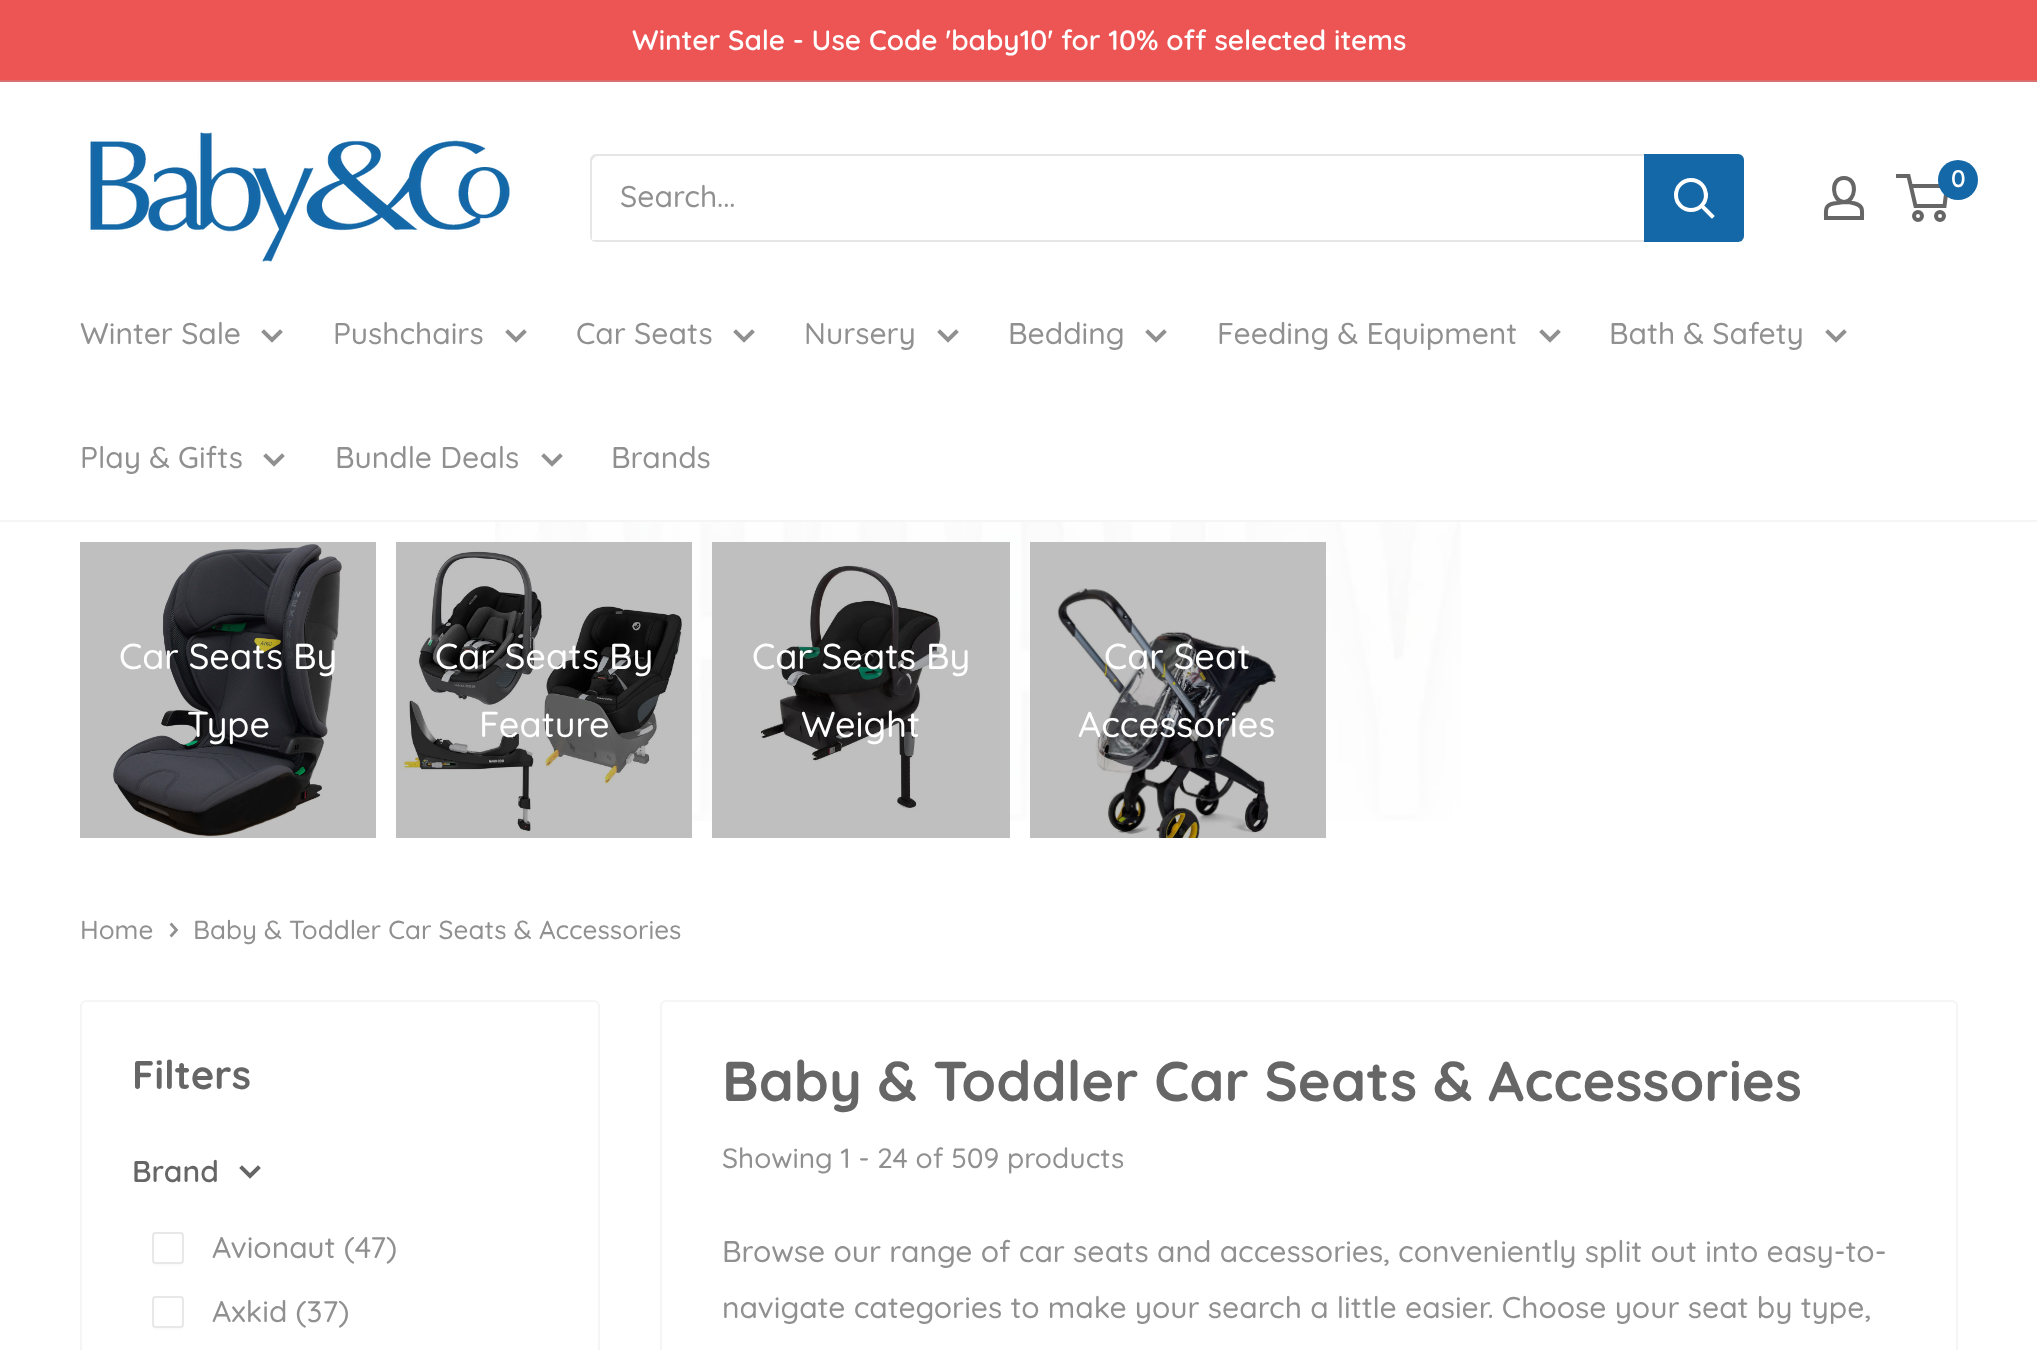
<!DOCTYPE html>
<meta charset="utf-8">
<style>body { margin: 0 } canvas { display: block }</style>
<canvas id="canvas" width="2037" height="1350"></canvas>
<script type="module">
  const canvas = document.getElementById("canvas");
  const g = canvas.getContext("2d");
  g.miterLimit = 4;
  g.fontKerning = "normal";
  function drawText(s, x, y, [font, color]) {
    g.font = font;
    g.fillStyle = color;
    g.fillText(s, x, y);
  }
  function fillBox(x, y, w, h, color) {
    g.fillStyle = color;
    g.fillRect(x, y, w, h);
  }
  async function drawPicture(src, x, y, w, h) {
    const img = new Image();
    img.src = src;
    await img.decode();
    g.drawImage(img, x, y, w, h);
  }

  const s1 = ["600 28px Quicksand", "#FFFFFF"];
  const s2 = ["600 24px Quicksand", "#FFFFFF"];
  const s3 = ["500 30px Quicksand", "#909090"];
  const s4 = ["500 36px Quicksand", "#FFFFFF"];
  const s5 = ["500 26px Quicksand", "#909090"];
  const s6 = ["bold 40px Quicksand", "#666666"];
  const s7 = ["600 30px Quicksand", "#666666"];
  const s8 = ["bold 56px Quicksand", "#666666"];
  const s9 = ["500 28px Quicksand", "#909090"];

  fillBox(0, 0, 2037, 1350, "#FFFFFF");
  fillBox(0, 0, 2037, 80, "#ED5454");
  fillBox(0, 80, 2037, 2, "#DA6E6E");
  drawText("Winter Sale - Use Code 'baby10' for 10% off selected items", 632, 50, s1);
  await drawPicture("pic1.png", 90, 132, 421, 130);
  g.beginPath();
  g.moveTo(1844, 202);
  g.bezierCurveTo(1848, 202, 1851.5, 202.5, 1855, 203.5);
  g.bezierCurveTo(1863.5, 206, 1862, 210.5, 1862, 218);
  g.lineTo(1826, 218);
  g.bezierCurveTo(1826, 210, 1824.5, 205.5, 1833.5, 203.5);
  g.closePath();
  g.moveTo(1844, 202);
  g.bezierCurveTo(1832, 202, 1829.5, 178, 1844, 178);
  g.bezierCurveTo(1858.5, 178, 1856, 202, 1844, 202);
  g.closePath();
  g.strokeStyle = "#666666";
  g.lineWidth = 4;
  g.stroke();
  g.beginPath();
  g.arc(1918, 216, 4, 0, Math.PI * 2);
  g.stroke();
  g.beginPath();
  g.arc(1940, 216, 4, 0, Math.PI * 2);
  g.stroke();
  g.beginPath();
  g.moveTo(1910.5, 186);
  g.lineTo(1947, 186);
  g.lineTo(1944.5, 206);
  g.lineTo(1915.5, 206);
  g.lineTo(1908.5, 176);
  g.lineTo(1896, 176);
  g.stroke();
  g.fillStyle = "#1468A7";
  g.beginPath();
  g.arc(1958, 180, 20, 0, Math.PI * 2);
  g.fill();
  drawText("0", 1951, 187, s2);
  g.fillStyle = "#E6E6E6";
  g.beginPath();
  g.moveTo(591, 239);
  g.bezierCurveTo(592, 241, 594, 242, 596, 242);
  g.lineTo(1738, 242);
  g.bezierCurveTo(1741, 242, 1744, 239, 1744, 236);
  g.lineTo(1744, 160);
  g.bezierCurveTo(1744, 158, 1743, 156, 1741, 155);
  g.bezierCurveTo(1742, 156, 1742, 157, 1742, 158);
  g.lineTo(1742, 234);
  g.bezierCurveTo(1742, 237, 1739, 240, 1736, 240);
  g.lineTo(594, 240);
  g.bezierCurveTo(593, 240, 592, 240, 591, 239);
  g.closePath();
  g.fill();
  g.fillStyle = "rgba(172, 172, 172, 0.3)";
  g.beginPath();
  g.moveTo(598, 156);
  g.lineTo(1740, 156);
  g.lineTo(1743, 157);
  g.bezierCurveTo(1742, 155, 1740, 154, 1738, 154);
  g.lineTo(596, 154);
  g.bezierCurveTo(593, 154, 590, 157, 590, 160);
  g.lineTo(590, 236);
  g.bezierCurveTo(590, 238, 591, 240, 593, 241);
  g.bezierCurveTo(592, 240, 592, 239, 592, 238);
  g.lineTo(592, 162);
  g.bezierCurveTo(592, 159, 595, 156, 598, 156);
  g.closePath();
  g.fill();
  drawText("Search...", 620, 207, s3);
  g.fillStyle = "#1468A7";
  g.beginPath();
  g.roundRect(1644, 154, 100, 88, [0, 6, 6, 0]);
  g.fill();
  g.beginPath();
  g.moveTo(1712, 216);
  g.lineTo(1702, 206);
  g.strokeStyle = "#FFFFFF";
  g.lineCap = "square";
  g.stroke();
  g.beginPath();
  g.arc(1691, 195, 15, 0, Math.PI * 2);
  g.stroke();
  fillBox(0, 520, 2037, 2, "#F5F5F5");
  drawText("Winter Sale", 80, 344, s3);
  g.beginPath();
  g.moveTo(280, 332);
  g.lineTo(272, 340);
  g.lineTo(264, 332);
  g.strokeStyle = "#909090";
  g.stroke();
  drawText("Pushchairs", 333, 344, s3);
  g.beginPath();
  g.moveTo(524, 332);
  g.lineTo(516, 340);
  g.lineTo(508, 332);
  g.stroke();
  drawText("Car Seats", 576, 344, s3);
  g.beginPath();
  g.moveTo(752, 332);
  g.lineTo(744, 340);
  g.lineTo(736, 332);
  g.stroke();
  drawText("Nursery", 804, 344, s3);
  g.beginPath();
  g.moveTo(956, 332);
  g.lineTo(948, 340);
  g.lineTo(940, 332);
  g.stroke();
  drawText("Bedding", 1008, 344, s3);
  g.beginPath();
  g.moveTo(1164, 332);
  g.lineTo(1156, 340);
  g.lineTo(1148, 332);
  g.stroke();
  drawText("Feeding & Equipment", 1217, 344, s3);
  g.beginPath();
  g.moveTo(1558, 332);
  g.lineTo(1550, 340);
  g.lineTo(1542, 332);
  g.stroke();
  drawText("Bath & Safety", 1609, 344, s3);
  g.beginPath();
  g.moveTo(1844, 332);
  g.lineTo(1836, 340);
  g.lineTo(1828, 332);
  g.stroke();
  drawText("Play & Gifts", 80, 468, s3);
  g.beginPath();
  g.moveTo(282, 456);
  g.lineTo(274, 464);
  g.lineTo(266, 456);
  g.stroke();
  drawText("Bundle Deals", 335, 468, s3);
  g.beginPath();
  g.moveTo(560, 456);
  g.lineTo(552, 464);
  g.lineTo(544, 456);
  g.stroke();
  drawText("Brands", 611, 468, s3);
  await drawPicture("pic2.png", 495, 522, 966, 299);
  await drawPicture("pic3.png", 80, 542, 296, 296);
  drawText("Car Seats By", 119, 669, s4);
  drawText("Type", 187, 737, s4);
  await drawPicture("pic4.png", 396, 542, 296, 296);
  drawText("Car Seats By", 435, 669, s4);
  drawText("Feature", 479, 737, s4);
  await drawPicture("pic5.png", 712, 542, 298, 296);
  drawText("Car Seats By", 752, 669, s4);
  drawText("Weight", 801, 737, s4);
  await drawPicture("pic6.png", 1030, 542, 296, 296);
  drawText("Car Seat", 1104, 669, s4);
  drawText("Accessories", 1078, 737, s4);
  drawText("Home", 80, 939, s5);
  g.beginPath();
  g.moveTo(171.5, 924.5);
  g.lineTo(176.5, 930);
  g.lineTo(171.5, 935.5);
  g.lineWidth = 2.7;
  g.stroke();
  drawText("Baby & Toddler Car Seats & Accessories", 193, 939, s5);
  g.beginPath();
  g.roundRect(81, 1001, 518, 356, 5);
  g.strokeStyle = "#F5F5F5";
  g.lineWidth = 2;
  g.stroke();
  drawText("Filters", 132, 1089, s6);
  drawText("Brand", 132, 1182, s7);
  g.beginPath();
  g.moveTo(258, 1168);
  g.lineTo(250, 1176);
  g.lineTo(242, 1168);
  g.strokeStyle = "#666666";
  g.lineWidth = 4;
  g.stroke();
  g.fillStyle = "#FBFBFB";
  g.beginPath();
  g.moveTo(152, 1260);
  g.bezierCurveTo(152, 1266, 154.5, 1266, 160, 1266);
  g.lineTo(176, 1266);
  g.bezierCurveTo(181.5, 1266, 184, 1266, 184, 1260);
  g.bezierCurveTo(184, 1262, 182, 1264, 180, 1264);
  g.lineTo(156, 1264);
  g.bezierCurveTo(154, 1264, 152, 1262, 152, 1260);
  g.closePath();
  g.fill();
  g.beginPath();
  g.roundRect(153, 1233, 30, 30, 3);
  g.strokeStyle = "#E8E8E8";
  g.lineWidth = 2;
  g.stroke();
  drawText("Avionaut (47)", 212, 1258, s3);
  g.fillStyle = "#FBFBFB";
  g.beginPath();
  g.moveTo(152, 1324);
  g.bezierCurveTo(152, 1330, 154.5, 1330, 160, 1330);
  g.lineTo(176, 1330);
  g.bezierCurveTo(181.5, 1330, 184, 1330, 184, 1324);
  g.bezierCurveTo(184, 1326, 182, 1328, 180, 1328);
  g.lineTo(156, 1328);
  g.bezierCurveTo(154, 1328, 152, 1326, 152, 1324);
  g.closePath();
  g.fill();
  g.beginPath();
  g.roundRect(153, 1297, 30, 30, 3);
  g.stroke();
  drawText("Axkid (37)", 212, 1322, s3);
  g.beginPath();
  g.roundRect(661, 1001, 1296, 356, 5);
  g.strokeStyle = "#F5F5F5";
  g.stroke();
  drawText("Baby & Toddler Car Seats & Accessories", 722, 1101, s8);
  drawText("Showing 1 - 24 of 509 products", 722, 1168, s9);
  drawText("Browse our range of car seats and accessories, conveniently split out into easy-to-", 722, 1262, s3);
  drawText("navigate categories to make your search a little easier. Choose your seat by type,", 722, 1318, s3);
</script>
